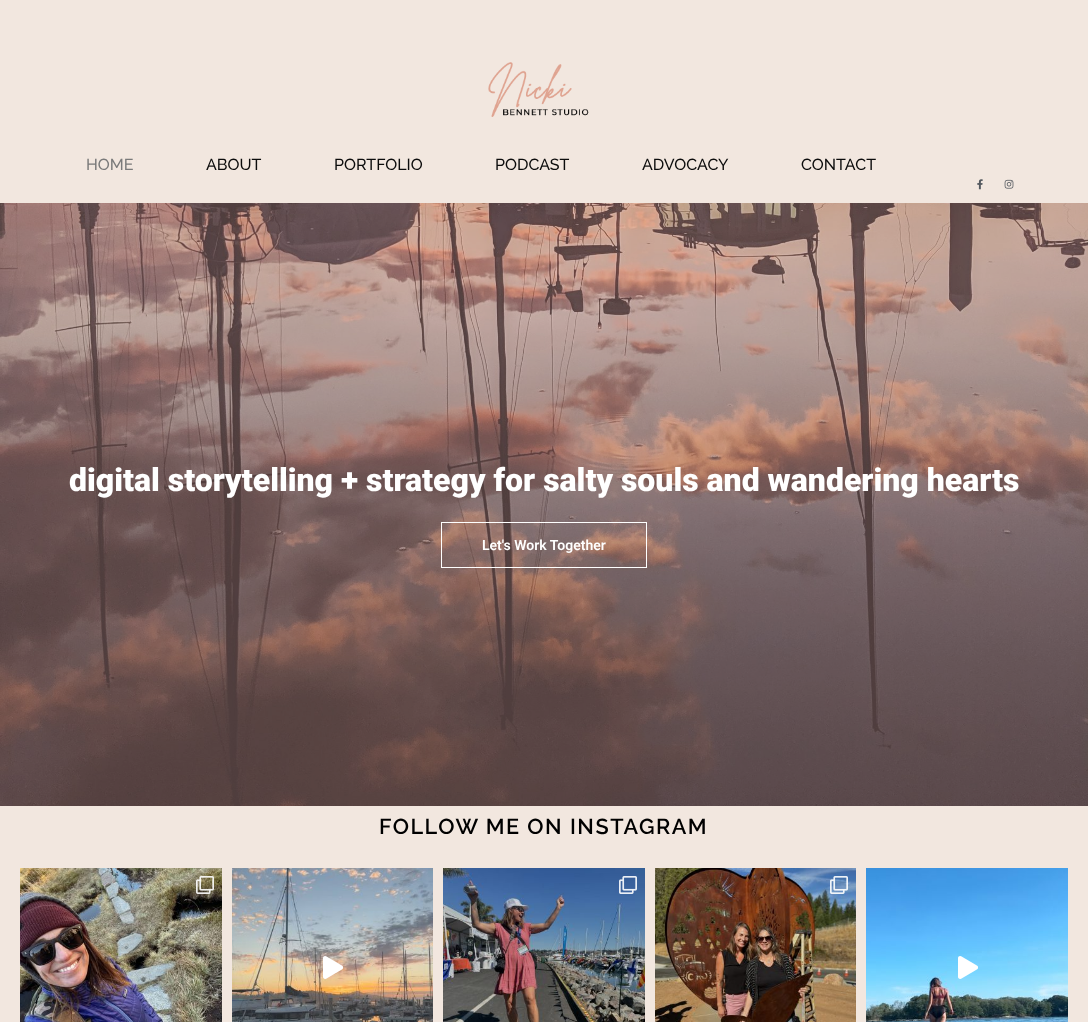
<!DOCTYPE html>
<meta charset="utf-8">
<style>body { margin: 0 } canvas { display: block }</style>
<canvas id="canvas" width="1088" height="1022"></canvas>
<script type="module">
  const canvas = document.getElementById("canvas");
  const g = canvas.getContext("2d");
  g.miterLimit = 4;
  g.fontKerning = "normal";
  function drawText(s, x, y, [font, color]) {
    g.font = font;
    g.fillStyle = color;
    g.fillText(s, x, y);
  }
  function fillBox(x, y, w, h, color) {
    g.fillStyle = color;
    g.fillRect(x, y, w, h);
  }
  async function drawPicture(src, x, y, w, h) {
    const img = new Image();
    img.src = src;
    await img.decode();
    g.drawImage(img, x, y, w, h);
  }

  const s1 = ["500 16px Raleway", "#7A7A7A"];
  const s2 = ["500 16px Raleway", "#0C0C0C"];
  const s3 = ["900 32px Roboto", "#FFFFFF"];
  const s4 = ["600 14px Roboto", "#FFFFFF"];
  const s5 = ["600 21.6px Raleway", "#000000"];

  fillBox(0, 0, 1088, 1022, "#F2E7DF");
  await drawPicture("pic1.png", 488, 62, 101, 55);
  drawText("HOME", 86, 170, s1);
  drawText("ABOUT", 206, 170, s2);
  drawText("PORTFOLIO", 334, 170, s2);
  drawText("PODCAST", 495, 170, s2);
  drawText("ADVOCACY", 642, 170, s2);
  drawText("CONTACT", 801, 170, s2);
  await drawPicture("pic2.png", 977, 179, 6, 11);
  await drawPicture("pic3.png", 1004, 179, 10, 10);
  await drawPicture("pic4.png", 0, 203, 1088, 603);
  drawText("digital storytelling + strategy for salty souls and wandering hearts", 69, 491, s3);
  g.strokeStyle = "#FFFFFF";
  g.strokeRect(441.5, 522.5, 205, 45);
  drawText("Let's Work Together", 482, 550, s4);
  g.letterSpacing = "1.5px";
  drawText("FOLLOW ME ON INSTAGRAM", 379, 834, s5);
  await drawPicture("pic5.png", 20, 868, 202, 154);
  await drawPicture("pic6.png", 196, 876, 18, 18);
  await drawPicture("pic7.png", 232, 868, 201, 154);
  await drawPicture("pic8.png", 323, 956, 21, 23);
  await drawPicture("pic9.png", 443, 868, 202, 154);
  await drawPicture("pic10.png", 619, 876, 18, 18);
  await drawPicture("pic11.png", 655, 868, 201, 154);
  await drawPicture("pic12.png", 830, 876, 18, 18);
  await drawPicture("pic13.png", 866, 868, 202, 154);
  await drawPicture("pic14.png", 958, 956, 20, 23);
</script>
